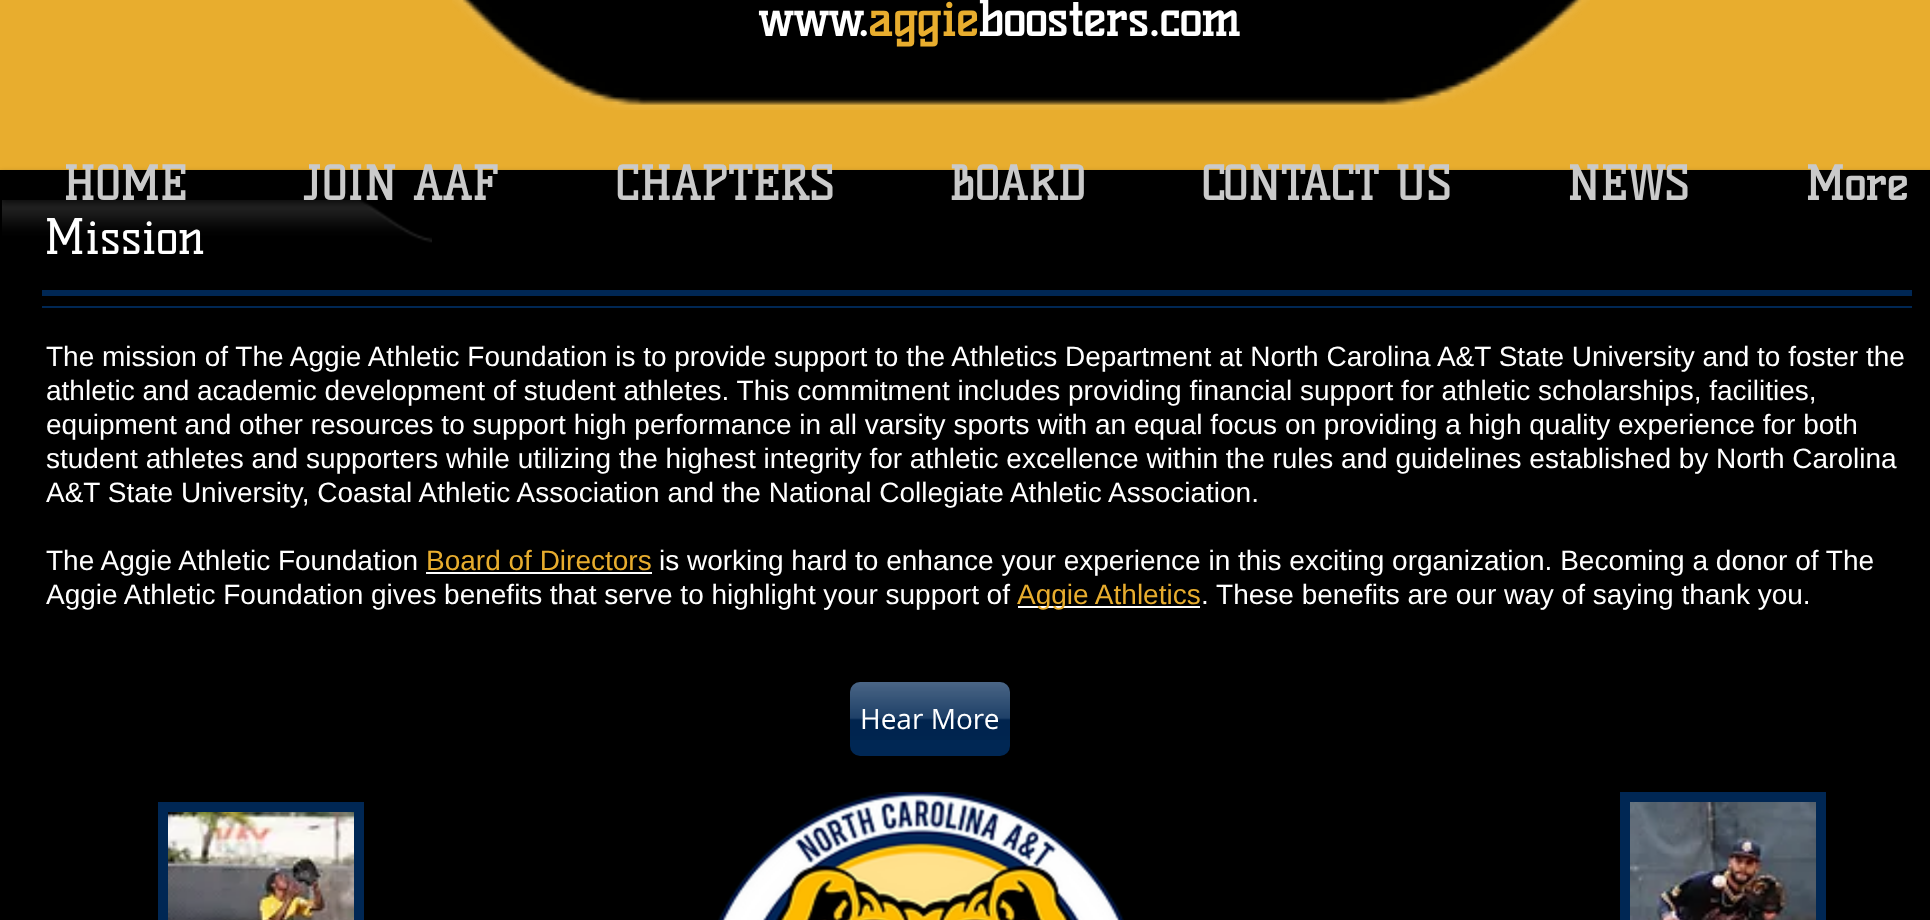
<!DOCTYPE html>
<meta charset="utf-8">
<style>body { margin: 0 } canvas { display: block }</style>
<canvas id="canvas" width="1930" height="920"></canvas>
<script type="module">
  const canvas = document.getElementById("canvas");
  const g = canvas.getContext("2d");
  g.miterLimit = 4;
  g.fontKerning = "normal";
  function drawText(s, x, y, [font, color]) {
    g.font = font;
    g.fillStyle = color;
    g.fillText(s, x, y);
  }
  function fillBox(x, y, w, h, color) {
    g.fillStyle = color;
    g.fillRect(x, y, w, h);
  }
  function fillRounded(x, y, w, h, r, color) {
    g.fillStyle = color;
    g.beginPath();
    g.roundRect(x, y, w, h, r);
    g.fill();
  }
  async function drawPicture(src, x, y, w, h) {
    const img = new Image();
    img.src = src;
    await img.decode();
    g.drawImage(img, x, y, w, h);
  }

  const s1 = ["bold 48px Kelly Slab", "#FFFFFF"];
  const s2 = ["bold 48px Kelly Slab", "#E8AD2E"];
  const s3 = ["bold 46px Kelly Slab", "#CACACA"];
  const s4 = ["48px Kelly Slab", "#FFFFFF"];
  const s5 = ["28px Liberation Sans", "#FFFFFF"];
  const s6 = ["28px Liberation Sans", "#E8AD2E"];
  const s7 = ["28px Open Sans", "#FFFFFF"];

  fillBox(0, 0, 1930, 920, "#E8AD2E");
  await drawPicture("pic1.png", 452, 0, 1138, 110);
  drawText("www.", 758, 36, s1);
  drawText("aggie", 869, 36, s2);
  drawText("boosters.com", 978, 36, s1);
  fillBox(0, 200, 1930, 720, "#000000");
  await drawPicture("pic2.png", 2, 200, 430, 43);
  g.fillStyle = "rgba(0, 0, 0, 0.7)";
  g.filter = "blur(3px)";
  g.beginPath();
  g.rect(0, 174, 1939, 30);
  g.fill();
  g.filter = "none";
  fillBox(0, 170, 1930, 30, "#000000");
  drawText("HOME", 63, 200, s3);
  drawText("JOIN AAF", 303, 200, s3);
  drawText("CHAPTERS", 615, 200, s3);
  drawText("BOARD", 949, 200, s3);
  drawText("CONTACT US", 1201, 200, s3);
  drawText("NEWS", 1567, 200, s3);
  drawText("More", 1805, 200, s3);
  drawText("Mission", 44, 254, s4);
  fillBox(42, 290, 1870, 6, "#002754");
  fillBox(42, 306, 1870, 2, "#002754");
  drawText("The mission of The Aggie Athletic Foundation is to provide support to the Athletics Department at North Carolina A&T State University and to foster the", 46, 366, s5);
  drawText("athletic and academic development of student athletes. This commitment includes providing financial support for athletic scholarships, facilities,", 46, 400, s5);
  drawText("equipment and other resources to support high performance in all varsity sports with an equal focus on providing a high quality experience for both", 46, 434, s5);
  drawText("student athletes and supporters while utilizing the highest integrity for athletic excellence within the rules and guidelines established by North Carolina", 46, 468, s5);
  drawText("A&T State University, Coastal Athletic Association and the National Collegiate Athletic Association.", 46, 502, s5);
  drawText("The Aggie Athletic Foundation", 46, 570, s5);
  drawText("Board of Directors", 426, 570, s6);
  fillBox(426, 572, 226, 2, "#FFFFFF");
  drawText("is working hard to enhance your experience in this exciting organization. Becoming a donor of The", 659, 570, s5);
  g.wordSpacing = "-0.1px";
  drawText("Aggie Athletic Foundation gives benefits that serve to highlight your support of", 46, 604, s5);
  fillBox(1018, 606, 182, 2, "#FFFFFF");
  g.wordSpacing = "0px";
  drawText("Aggie Athletics", 1017, 604, s6);
  drawText(". These benefits are our way of saying thank you.", 1201, 604, s5);
  fillRounded(850, 682, 160, 74, 10, "#002754");
  await drawPicture("pic3.png", 850, 682, 160, 58);
  drawText("Hear More", 860, 729, s7);
  fillBox(158, 802, 206, 118, "#002754");
  await drawPicture("pic4.png", 168, 812, 186, 108);
  await drawPicture("pic5.png", 718, 792, 406, 128);
  fillBox(1620, 792, 206, 128, "#002754");
  await drawPicture("pic6.png", 1630, 802, 186, 118);
</script>
